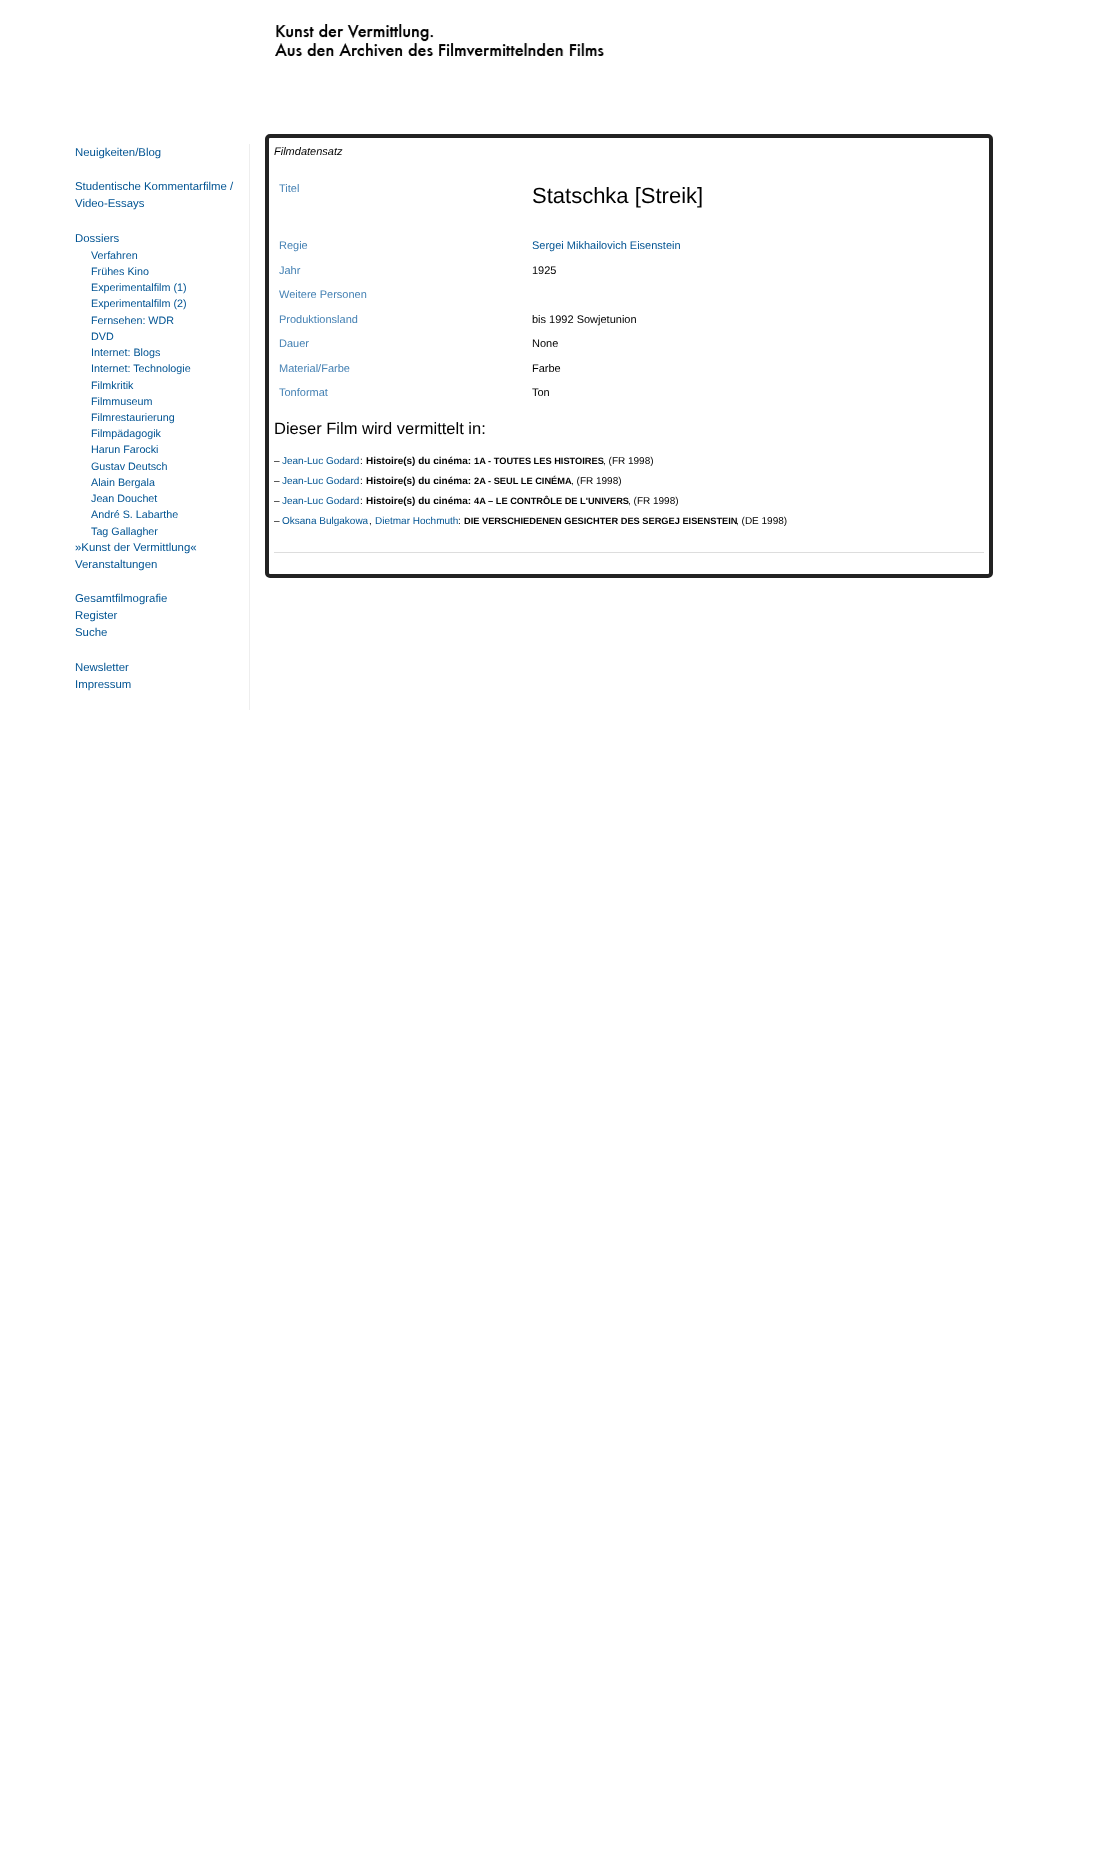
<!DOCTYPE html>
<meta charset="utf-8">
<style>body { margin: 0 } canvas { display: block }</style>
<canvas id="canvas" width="1100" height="1868"></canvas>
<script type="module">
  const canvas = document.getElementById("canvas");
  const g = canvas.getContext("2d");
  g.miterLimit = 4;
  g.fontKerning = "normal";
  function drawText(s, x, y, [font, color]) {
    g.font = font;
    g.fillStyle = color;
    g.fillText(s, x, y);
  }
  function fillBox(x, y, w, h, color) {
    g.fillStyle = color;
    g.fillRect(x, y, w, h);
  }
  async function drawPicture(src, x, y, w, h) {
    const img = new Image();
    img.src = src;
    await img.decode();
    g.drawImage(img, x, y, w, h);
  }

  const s1 = ["11.4px Liberation Sans", "#005392"];
  const s2 = ["10.75px Liberation Sans", "#005392"];
  const s3 = ["italic 11px Liberation Sans", "#000000"];
  const s4 = ["11px Liberation Sans", "#4682B4"];
  const s5 = ["22px Liberation Sans", "#000000"];
  const s6 = ["11px Liberation Sans", "#005392"];
  const s7 = ["11px Liberation Sans", "#000000"];
  const s8 = ["16.5px Liberation Sans", "#000000"];
  const s9 = ["10px Liberation Sans", "#000000"];
  const s10 = ["10px Liberation Sans", "#005392"];
  const s11 = ["bold 10px Liberation Sans", "#000000"];
  const s12 = ["bold 9.25px Liberation Sans", "#000000"];

  fillBox(0, 0, 1100, 1868, "#FFFFFF");
  await drawPicture("pic1.png", 275, 24, 329, 32);
  fillBox(249, 144, 1, 566, "#EEEEEE");
  drawText("Neuigkeiten/Blog", 75, 156, s1);
  drawText("Studentische Kommentarfilme /", 75, 190, s1);
  drawText("Video-Essays", 75, 207, s1);
  drawText("Dossiers", 75, 242, s1);
  drawText("Verfahren", 91, 259, s2);
  drawText("Frühes Kino", 91, 275, s2);
  drawText("Experimentalfilm (1)", 91, 291, s2);
  drawText("Experimentalfilm (2)", 91, 307, s2);
  drawText("Fernsehen: WDR", 91, 324, s2);
  drawText("DVD", 91, 340, s2);
  drawText("Internet: Blogs", 91, 356, s2);
  drawText("Internet: Technologie", 91, 372, s2);
  drawText("Filmkritik", 91, 389, s2);
  drawText("Filmmuseum", 91, 405, s2);
  drawText("Filmrestaurierung", 91, 421, s2);
  drawText("Filmpädagogik", 91, 437, s2);
  drawText("Harun Farocki", 91, 453, s2);
  drawText("Gustav Deutsch", 91, 470, s2);
  drawText("Alain Bergala", 91, 486, s2);
  drawText("Jean Douchet", 91, 502, s2);
  drawText("André S. Labarthe", 91, 518, s2);
  drawText("Tag Gallagher", 91, 535, s2);
  drawText("»Kunst der Vermittlung«", 75, 551, s1);
  drawText("Veranstaltungen", 75, 568, s1);
  drawText("Gesamtfilmografie", 75, 602, s1);
  drawText("Register", 75, 619, s1);
  drawText("Suche", 75, 636, s1);
  drawText("Newsletter", 75, 671, s1);
  drawText("Impressum", 75, 688, s1);
  g.beginPath();
  g.roundRect(267, 136, 724, 440, 3);
  g.strokeStyle = "#222222";
  g.lineWidth = 4;
  g.stroke();
  drawText("Filmdatensatz", 274, 155, s3);
  drawText("Titel", 279, 192, s4);
  drawText("Statschka [Streik]", 532, 203, s5);
  drawText("Regie", 279, 249, s4);
  drawText("Sergei Mikhailovich Eisenstein", 532, 249, s6);
  drawText("Jahr", 279, 274, s4);
  drawText("1925", 532, 274, s7);
  drawText("Weitere Personen", 279, 298, s4);
  drawText("Produktionsland", 279, 323, s4);
  drawText("bis 1992 Sowjetunion", 532, 323, s7);
  drawText("Dauer", 279, 347, s4);
  drawText("None", 532, 347, s7);
  drawText("Material/Farbe", 279, 372, s4);
  drawText("Farbe", 532, 372, s7);
  drawText("Tonformat", 279, 396, s4);
  drawText("Ton", 532, 396, s7);
  drawText("Dieser Film wird vermittelt in:", 274, 434, s8);
  drawText("–", 274, 464, s9);
  drawText("Jean-Luc Godard", 282, 464, s10);
  drawText(":", 360, 464, s9);
  drawText("Histoire(s) du cinéma:", 366, 464, s11);
  drawText("1A - TOUTES LES HISTOIRES", 474, 464, s12);
  drawText(", (FR 1998)", 603, 464, s9);
  drawText("–", 274, 484, s9);
  drawText("Jean-Luc Godard", 282, 484, s10);
  drawText(":", 360, 484, s9);
  drawText("Histoire(s) du cinéma:", 366, 484, s11);
  drawText("2A - SEUL LE CINÉMA", 474, 484, s12);
  drawText(", (FR 1998)", 571, 484, s9);
  drawText("–", 274, 504, s9);
  drawText("Jean-Luc Godard", 282, 504, s10);
  drawText(":", 360, 504, s9);
  drawText("Histoire(s) du cinéma:", 366, 504, s11);
  drawText("4A – LE CONTRÔLE DE L'UNIVERS", 474, 504, s12);
  drawText(", (FR 1998)", 628, 504, s9);
  drawText("–", 274, 524, s9);
  drawText("Oksana Bulgakowa", 282, 524, s10);
  drawText("Dietmar Hochmuth", 375, 524, s10);
  drawText(":", 458, 524, s9);
  drawText("DIE VERSCHIEDENEN GESICHTER DES SERGEJ EISENSTEIN", 464, 524, s12);
  drawText(", (DE 1998)", 736, 524, s9);
  drawText(",", 369, 524, s9);
  fillBox(274, 552, 710, 1, "#DDDDDD");
</script>
